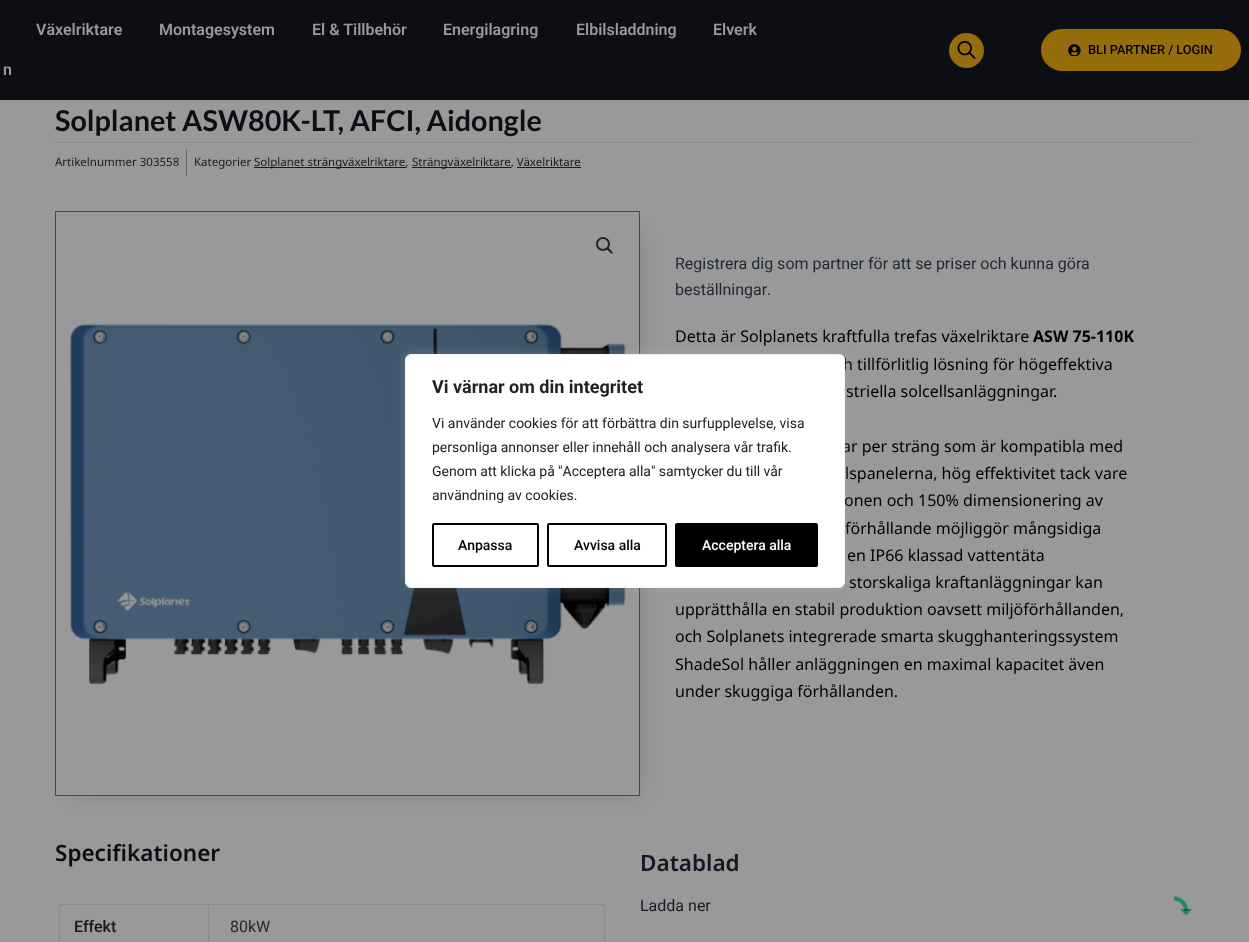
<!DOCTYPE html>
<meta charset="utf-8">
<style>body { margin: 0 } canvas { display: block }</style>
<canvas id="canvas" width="1249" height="942"></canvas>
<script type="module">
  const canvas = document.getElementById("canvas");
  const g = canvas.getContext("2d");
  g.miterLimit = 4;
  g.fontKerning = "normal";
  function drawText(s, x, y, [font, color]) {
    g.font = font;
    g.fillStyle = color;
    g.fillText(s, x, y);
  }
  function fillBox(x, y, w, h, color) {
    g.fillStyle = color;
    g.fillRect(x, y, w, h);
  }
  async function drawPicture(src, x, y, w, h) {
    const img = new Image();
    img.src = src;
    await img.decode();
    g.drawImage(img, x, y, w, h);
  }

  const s1 = ["600 16px Roboto", "#999999"];
  const s2 = ["500 12.75px Roboto", "#000000"];
  const s3 = ["bold 28.75px Lato", "#0D0D14"];
  const s4 = ["11.5px Noto Sans", "#191926"];
  const s5 = ["16px Roboto", "#1F2733"];
  const s6 = ["16px Noto Sans", "#000000"];
  const s7 = ["bold 16px Noto Sans", "#000000"];
  const s8 = ["600 22.5px Noto Sans", "#0D0D14"];
  const s9 = ["500 16px Roboto", "#121923"];
  const s10 = ["600 22.5px Noto Sans", "#121923"];
  const s11 = ["16px Roboto", "#191926"];
  const s12 = ["bold 18px Roboto", "#212121"];
  const s13 = ["14px Roboto", "#212121"];
  const s14 = ["500 14px Roboto", "#000000"];
  const s15 = ["500 14px Roboto", "#FFFFFF"];

  fillBox(0, 0, 1249, 942, "#999999");
  fillBox(0, 0, 1249, 100, "#0D0D14");
  drawText("Växelriktare", 36, 35, s1);
  drawText("Montagesystem", 159, 35, s1);
  drawText("El & Tillbehör", 312, 35, s1);
  drawText("Energilagring", 443, 35, s1);
  drawText("Elbilsladdning", 576, 35, s1);
  drawText("Elverk", 713, 35, s1);
  drawText("n", 3, 75, s1);
  g.fillStyle = "#966D0D";
  g.beginPath();
  g.arc(966.5, 50.5, 17.5, 0, Math.PI * 2);
  g.fill();
  await drawPicture("pic1.png", 957, 41, 19, 18);
  g.beginPath();
  g.roundRect(1042.5, 30.5, 197, 39, 19.5);
  g.fill();
  g.strokeStyle = "#996D00";
  g.lineWidth = 3;
  g.stroke();
  await drawPicture("pic2.png", 1068, 44, 13, 12);
  drawText("BLI PARTNER / LOGIN", 1088, 54, s2);
  drawText("Solplanet ASW80K-LT, AFCI, Aidongle", 55, 131, s3);
  fillBox(55, 142, 1140, 1, "#888B90");
  drawText("Artikelnummer 303558", 55, 166, s4);
  fillBox(186, 149, 1, 27, "#636368");
  drawText("Kategorier", 194, 166, s4);
  fillBox(254, 167, 152, 1, "#191926");
  drawText("Solplanet strängväxelriktare,", 254, 166, s4);
  fillBox(412, 167, 99, 1, "#191926");
  drawText("Strängväxelriktare, Växelriktare", 412, 166, s4);
  fillBox(517, 167, 64, 1, "#191926");
  g.save();
  g.beginPath();
  g.moveTo(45, 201);
  g.lineTo(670, 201);
  g.lineTo(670, 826);
  g.lineTo(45, 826);
  g.closePath();
  g.moveTo(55, 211);
  g.lineTo(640, 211);
  g.lineTo(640, 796);
  g.lineTo(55, 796);
  g.closePath();
  g.clip("evenodd");
  g.fillStyle = "rgba(0, 0, 0, 0.15)";
  g.filter = "blur(10px)";
  g.beginPath();
  g.rect(76, 232, 563, 563);
  g.fill();
  g.filter = "none";
  g.restore();
  g.strokeStyle = "#494949";
  g.lineWidth = 1;
  g.strokeRect(55.5, 211.5, 584, 584);
  g.beginPath();
  g.arc(603, 244, 6, 0, Math.PI * 2);
  g.strokeStyle = "#1F2733";
  g.lineWidth = 2;
  g.stroke();
  g.fillStyle = "#1F2733";
  g.beginPath();
  g.moveTo(607, 248);
  g.bezierCurveTo(608, 246.5, 610, 249.5, 610.5, 250);
  g.bezierCurveTo(611, 250.5, 613.5, 252.5, 612.5, 253.5);
  g.bezierCurveTo(611.5, 254.5, 609.5, 252, 609, 251.5);
  g.bezierCurveTo(608.5, 250.5, 605.5, 249, 607, 248);
  g.closePath();
  g.fill();
  await drawPicture("pic3.png", 69, 323, 557, 362);
  drawText("Registrera dig som partner för att se priser och kunna göra", 675, 269, s5);
  drawText("beställningar.", 675, 295, s5);
  drawText("Detta är Solplanets kraftfulla trefas växelriktare", 675, 342, s6);
  drawText("ASW 75-110K", 1033, 342, s7);
  drawText("h tillförlitlig lösning för högeffektiva", 843, 370, s6);
  drawText("striella solcellsanläggningar.", 846, 397, s6);
  drawText("ar per sträng som är kompatibla med", 842, 452, s6);
  drawText("lspanelerna, hög effektivitet tack vare", 845, 479, s6);
  drawText("onen och 150% dimensionering av", 844, 506, s6);
  drawText("förhållande möjliggör mångsidiga", 845, 534, s6);
  drawText("en IP66 klassad vattentäta", 847, 561, s6);
  drawText("storskaliga kraftanläggningar kan", 849, 588, s6);
  drawText("upprätthålla en stabil produktion oavsett miljöförhållanden,", 675, 615, s6);
  drawText("och Solplanets integrerade smarta skugghanteringssystem", 675, 642, s6);
  drawText("ShadeSol håller anläggningen en maximal kapacitet även", 675, 670, s6);
  drawText("under skuggiga förhållanden.", 675, 697, s6);
  drawText("Specifikationer", 55, 861, s8);
  fillBox(59, 904, 546, 1, "#888B90");
  fillBox(208, 905, 1, 37, "#888B90");
  fillBox(59, 905, 1, 37, "#888B90");
  drawText("Effekt", 74, 932, s9);
  fillBox(604, 905, 1, 37, "#888B90");
  drawText("80kW", 230, 932, s5);
  drawText("Datablad", 640, 871, s10);
  drawText("Ladda ner", 640, 911, s11);
  await drawPicture("pic4.png", 1174, 896, 18, 20);
  g.fillStyle = "rgba(172, 171, 171, 0.3)";
  g.filter = "blur(5px)";
  g.beginPath();
  g.roundRect(405, 353, 440, 234, 6);
  g.fill();
  g.filter = "none";
  g.fillStyle = "#FFFFFF";
  g.beginPath();
  g.roundRect(405.5, 354.5, 439, 233, 5.5);
  g.fill();
  g.strokeStyle = "#F4F4F4";
  g.lineWidth = 1;
  g.stroke();
  drawText("Vi värnar om din integritet", 432, 393, s12);
  drawText("Vi använder cookies för att förbättra din surfupplevelse, visa", 432, 428, s13);
  drawText("personliga annonser eller innehåll och analysera vår trafik.", 432, 452, s13);
  g.wordSpacing = "-0.25px";
  drawText("Genom att klicka på \"Acceptera alla\" samtycker du till vår", 432, 476, s13);
  g.wordSpacing = "0px";
  drawText("användning av cookies.", 432, 500, s13);
  g.beginPath();
  g.roundRect(433, 524, 105, 42, 1);
  g.strokeStyle = "#000000";
  g.lineWidth = 2;
  g.stroke();
  drawText("Anpassa", 458, 550, s14);
  g.beginPath();
  g.roundRect(548, 524, 118, 42, 1);
  g.stroke();
  drawText("Avvisa alla", 574, 550, s14);
  g.beginPath();
  g.roundRect(676, 524, 141, 42, 1);
  g.fill();
  g.stroke();
  drawText("Acceptera alla", 702, 550, s15);
</script>
